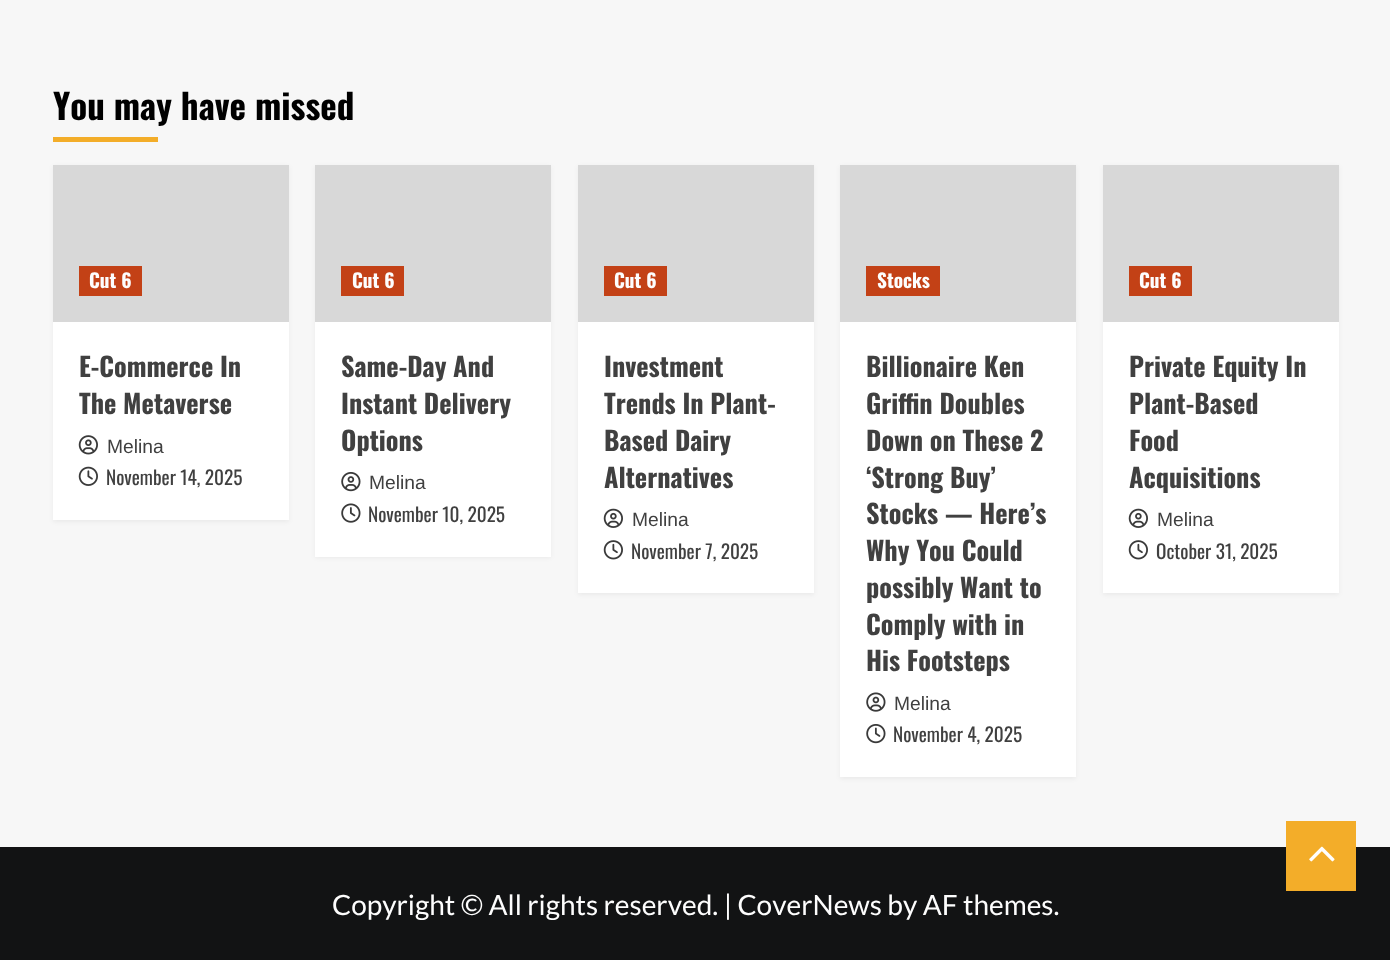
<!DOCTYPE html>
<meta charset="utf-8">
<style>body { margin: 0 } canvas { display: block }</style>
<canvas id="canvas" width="1390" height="960"></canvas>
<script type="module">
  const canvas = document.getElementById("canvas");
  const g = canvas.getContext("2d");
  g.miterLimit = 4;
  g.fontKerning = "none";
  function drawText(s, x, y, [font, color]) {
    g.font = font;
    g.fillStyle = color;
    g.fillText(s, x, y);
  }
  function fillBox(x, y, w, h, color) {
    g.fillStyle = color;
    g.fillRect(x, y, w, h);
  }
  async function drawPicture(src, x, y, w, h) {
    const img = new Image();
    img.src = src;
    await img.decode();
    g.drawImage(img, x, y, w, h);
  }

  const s1 = ["bold 35px Oswald", "#000000"];
  const s2 = ["bold 19.25px Oswald", "#FDFDFD"];
  const s3 = ["bold 26.25px Oswald", "#404040"];
  const s4 = ["19.25px Liberation Sans", "#404040"];
  const s5 = ["19.25px Oswald", "#404040"];
  const s6 = ["28px Lato", "#FDFDFD"];

  fillBox(0, 0, 1390, 960, "#F7F7F7");
  drawText("You may have missed", 53, 120, s1);
  fillBox(53, 137, 105, 5, "#F3AD29");
  g.fillStyle = "rgba(0, 0, 0, 0.05)";
  g.filter = "blur(2px)";
  g.beginPath();
  g.rect(53, 166, 236, 356);
  g.fill();
  g.filter = "none";
  fillBox(53, 322, 236, 198, "#FFFFFF");
  fillBox(53, 165, 236, 157, "#D8D8D8");
  fillBox(79, 266, 63, 30, "#C34116");
  drawText("Cut 6", 89, 288, s2);
  drawText("E-Commerce In", 79, 377, s3);
  drawText("The Metaverse", 79, 414, s3);
  await drawPicture("pic1.png", 78, 435, 20, 20);
  drawText("Melina", 107, 453, s4);
  await drawPicture("pic2.png", 78, 466, 20, 20);
  drawText("November 14, 2025", 106, 485, s5);
  g.fillStyle = "rgba(0, 0, 0, 0.05)";
  g.filter = "blur(2px)";
  g.beginPath();
  g.rect(315, 166, 236, 392);
  g.fill();
  g.filter = "none";
  fillBox(315, 322, 236, 235, "#FFFFFF");
  fillBox(315, 165, 236, 157, "#D8D8D8");
  fillBox(341, 266, 63, 30, "#C34116");
  drawText("Cut 6", 352, 288, s2);
  drawText("Same-Day And", 341, 377, s3);
  drawText("Instant Delivery", 341, 414, s3);
  drawText("Options", 341, 451, s3);
  await drawPicture("pic3.png", 341, 472, 20, 20);
  drawText("Melina", 369, 489, s4);
  await drawPicture("pic4.png", 341, 503, 20, 20);
  drawText("November 10, 2025", 368, 522, s5);
  g.fillStyle = "rgba(0, 0, 0, 0.05)";
  g.filter = "blur(2px)";
  g.beginPath();
  g.rect(578, 166, 236, 429);
  g.fill();
  g.filter = "none";
  fillBox(578, 322, 236, 271, "#FFFFFF");
  fillBox(578, 165, 236, 157, "#D8D8D8");
  fillBox(604, 266, 63, 30, "#C34116");
  drawText("Cut 6", 614, 288, s2);
  drawText("Investment", 604, 377, s3);
  drawText("Trends In Plant-", 604, 414, s3);
  drawText("Based Dairy", 604, 451, s3);
  drawText("Alternatives", 604, 488, s3);
  await drawPicture("pic5.png", 603, 508, 20, 20);
  drawText("Melina", 632, 526, s4);
  await drawPicture("pic6.png", 603, 540, 20, 20);
  drawText("November 7, 2025", 631, 559, s5);
  g.fillStyle = "rgba(0, 0, 0, 0.05)";
  g.filter = "blur(2px)";
  g.beginPath();
  g.rect(840, 166, 236, 613);
  g.fill();
  g.filter = "none";
  fillBox(840, 322, 236, 455, "#FFFFFF");
  fillBox(840, 165, 236, 157, "#D8D8D8");
  fillBox(866, 266, 74, 30, "#C34116");
  drawText("Stocks", 877, 288, s2);
  drawText("Billionaire Ken", 866, 377, s3);
  drawText("Griffin Doubles", 866, 414, s3);
  drawText("Down on These 2", 866, 451, s3);
  drawText("‘Strong Buy’", 866, 488, s3);
  drawText("Stocks — Here’s", 866, 524, s3);
  drawText("Why You Could", 866, 561, s3);
  drawText("possibly Want to", 866, 598, s3);
  drawText("Comply with in", 866, 635, s3);
  drawText("His Footsteps", 866, 671, s3);
  await drawPicture("pic7.png", 866, 692, 20, 20);
  drawText("Melina", 894, 710, s4);
  await drawPicture("pic8.png", 866, 724, 20, 20);
  drawText("November 4, 2025", 893, 742, s5);
  g.fillStyle = "rgba(0, 0, 0, 0.05)";
  g.filter = "blur(2px)";
  g.beginPath();
  g.rect(1103, 166, 236, 429);
  g.fill();
  g.filter = "none";
  fillBox(1103, 322, 236, 271, "#FFFFFF");
  fillBox(1103, 165, 236, 157, "#D8D8D8");
  fillBox(1129, 266, 63, 30, "#C34116");
  drawText("Cut 6", 1139, 288, s2);
  drawText("Private Equity In", 1129, 377, s3);
  drawText("Plant-Based", 1129, 414, s3);
  drawText("Food", 1129, 451, s3);
  drawText("Acquisitions", 1129, 488, s3);
  await drawPicture("pic5.png", 1128, 508, 20, 20);
  drawText("Melina", 1157, 526, s4);
  await drawPicture("pic6.png", 1128, 540, 20, 20);
  drawText("October 31, 2025", 1156, 559, s5);
  fillBox(0, 847, 1390, 113, "#121314");
  drawText("Copyright © All rights reserved. | CoverNews by AF themes.", 332, 915, s6);
  fillBox(1286, 821, 70, 70, "#F3AD29");
  await drawPicture("pic9.png", 1309, 846, 26, 16);
</script>
